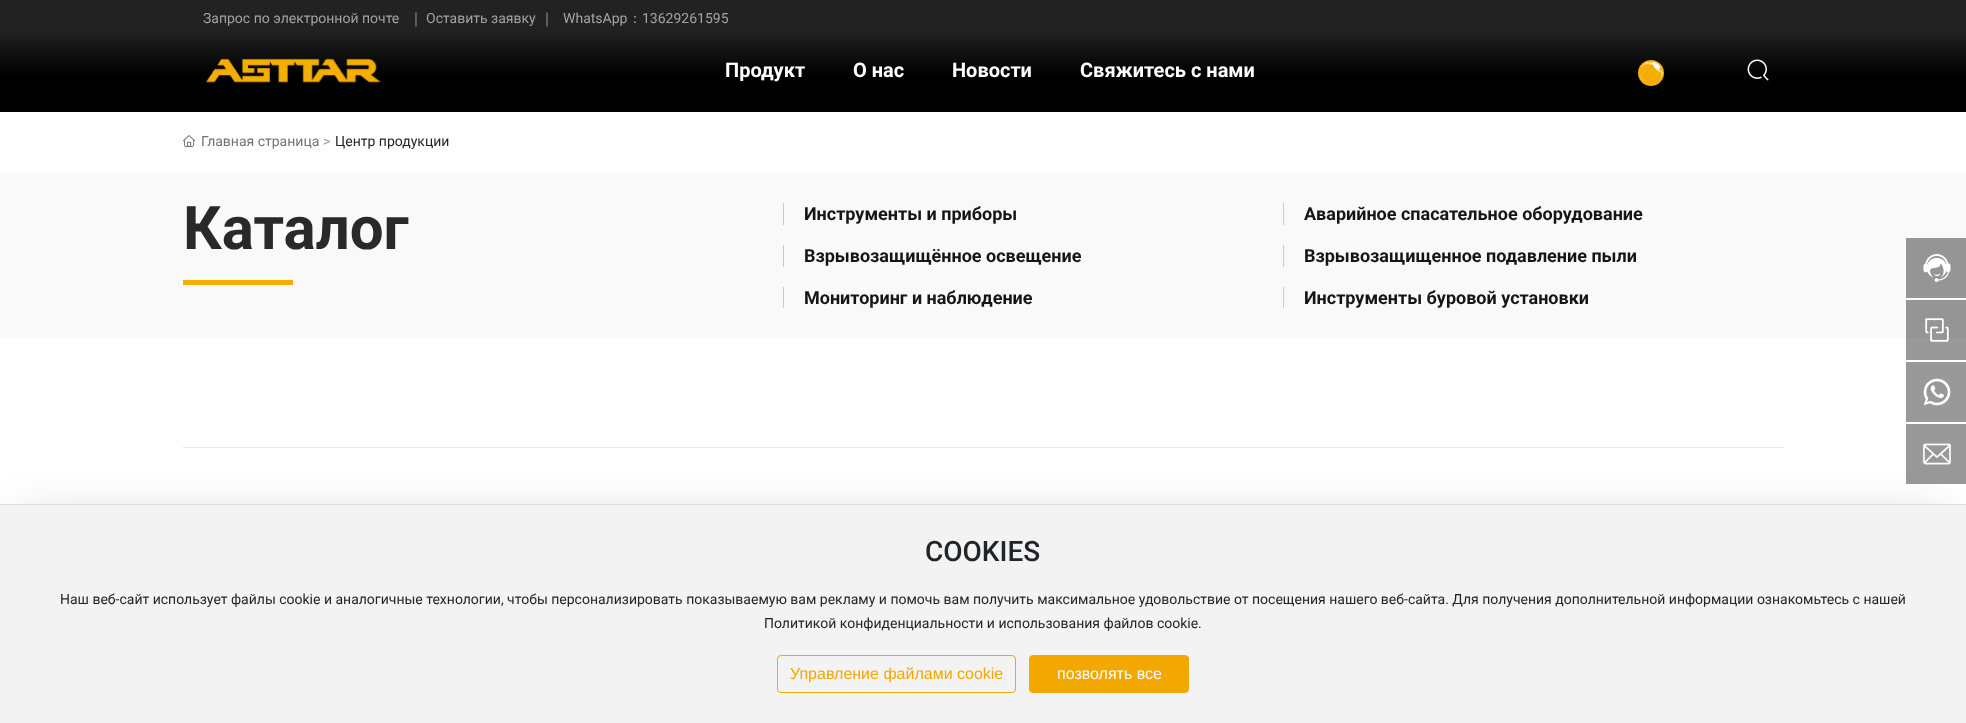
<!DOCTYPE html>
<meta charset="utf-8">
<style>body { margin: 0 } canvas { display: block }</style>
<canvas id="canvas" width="1966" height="723"></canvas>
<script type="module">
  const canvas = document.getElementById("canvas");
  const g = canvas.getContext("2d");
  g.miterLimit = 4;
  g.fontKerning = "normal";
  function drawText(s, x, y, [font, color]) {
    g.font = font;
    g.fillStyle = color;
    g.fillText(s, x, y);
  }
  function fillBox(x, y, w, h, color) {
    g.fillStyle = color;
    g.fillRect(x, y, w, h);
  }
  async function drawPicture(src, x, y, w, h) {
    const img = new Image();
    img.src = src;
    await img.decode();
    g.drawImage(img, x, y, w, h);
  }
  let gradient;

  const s1 = ["14px Roboto", "#A3A3A3"];
  const s2 = ["500 14px WenQuanYi Zen Hei", "#A3A3A3"];
  const s3 = ["bold 20px Roboto", "#FFFFFF"];
  const s4 = ["14px Roboto", "#6C757D"];
  const s5 = ["14px Roboto", "#999999"];
  const s6 = ["14px Roboto", "#212529"];
  const s7 = ["bold 60px Roboto", "#292929"];
  const s8 = ["bold 18px Roboto", "#151515"];
  const s9 = ["500 28px Roboto", "#212529"];
  const s10 = ["16px Liberation Sans", "#F3A701"];
  const s11 = ["16px Liberation Sans", "#FFFFFF"];

  fillBox(0, 0, 1966, 723, "#FFFFFF");
  fillBox(1906, 338, 60, 22, "#999999");
  gradient = g.createLinearGradient(0, 112, 0, 0);
  gradient.addColorStop(0.32, "#000000");
  gradient.addColorStop(0.73, "#222222");
  g.fillStyle = gradient;
  g.fillRect(0, 0, 1966, 112);
  drawText("Запрос по электронной почте", 203, 23, s1);
  drawText("｜", 409, 23, s2);
  drawText("Оставить заявку", 426, 23, s1);
  drawText("｜", 540, 23, s2);
  drawText("WhatsApp", 563, 23, s1);
  drawText("：", 628, 23, s2);
  drawText("13629261595", 642, 23, s1);
  await drawPicture("pic1.png", 206, 58, 175, 25);
  drawText("Продукт", 725, 77, s3);
  drawText("О нас", 853, 77, s3);
  drawText("Новости", 952, 77, s3);
  drawText("Свяжитесь с нами", 1080, 77, s3);
  g.fillStyle = "#F3AE00";
  g.beginPath();
  g.arc(1651, 73, 13, 0, Math.PI * 2);
  g.fill();
  await drawPicture("pic2.png", 1639, 61, 24, 22);
  await drawPicture("pic3.png", 1747, 59, 22, 22);
  await drawPicture("pic4.png", 183, 135, 12, 12);
  drawText("Главная страница", 201, 146, s4);
  drawText(">", 323, 146, s5);
  drawText("Центр продукции", 335, 146, s6);
  fillBox(0, 173, 1966, 165, "#F9F9F9");
  fillBox(1906, 300, 60, 38, "#959595");
  drawText("Каталог", 183, 249, s7);
  fillBox(183, 280, 110, 5, "#F3AE00");
  fillBox(783, 203, 1, 22, "#CBCBCB");
  drawText("Инструменты и приборы", 804, 220, s8);
  fillBox(1283, 203, 1, 22, "#CBCBCB");
  drawText("Аварийное спасательное оборудование", 1304, 220, s8);
  fillBox(783, 245, 1, 22, "#CBCBCB");
  drawText("Взрывозащищённое освещение", 804, 262, s8);
  fillBox(1283, 245, 1, 22, "#CBCBCB");
  drawText("Взрывозащищенное подавление пыли", 1304, 262, s8);
  fillBox(783, 287, 1, 21, "#CBCBCB");
  drawText("Мониторинг и наблюдение", 804, 304, s8);
  fillBox(1283, 287, 1, 21, "#CBCBCB");
  drawText("Инструменты буровой установки", 1304, 304, s8);
  fillBox(183, 447, 1600, 1, "#E6E6E6");
  fillBox(1906, 424, 60, 60, "#999999");
  await drawPicture("pic8.png", 1923, 443, 28, 22);
  g.fillStyle = "rgba(0, 0, 0, 0.2)";
  g.filter = "blur(25px)";
  g.beginPath();
  g.rect(21, 521, 1924, 177);
  g.fill();
  g.filter = "none";
  fillBox(0, 505, 1966, 218, "#F3F3F3");
  fillBox(0, 504, 1966, 1, "#DDDDDD");
  drawText("COOKIES", 925, 561, s9);
  drawText("Наш веб-сайт использует файлы cookie и аналогичные технологии, чтобы персонализировать показываемую вам рекламу и помочь вам получить максимальное удовольствие от посещения нашего веб-сайта. Для получения дополнительной информации ознакомьтесь с нашей", 60, 604, s6);
  drawText("Политикой конфиденциальности и использования файлов cookie.", 764, 628, s6);
  g.beginPath();
  g.roundRect(777.5, 655.5, 238, 37, 3.5);
  g.strokeStyle = "#F3A701";
  g.stroke();
  drawText("Управление файлами cookie", 790, 679, s10);
  g.beginPath();
  g.roundRect(1029.5, 655.5, 159, 37, 3.5);
  g.fill();
  g.stroke();
  drawText("позволять все", 1057, 679, s11);
  fillBox(1906, 238, 60, 60, "#959595");
  await drawPicture("pic5.png", 1923, 254, 28, 28);
  await drawPicture("pic6.png", 1925, 318, 24, 24);
  fillBox(1906, 362, 60, 60, "#999999");
  await drawPicture("pic7.png", 1923, 378, 28, 28);
</script>
